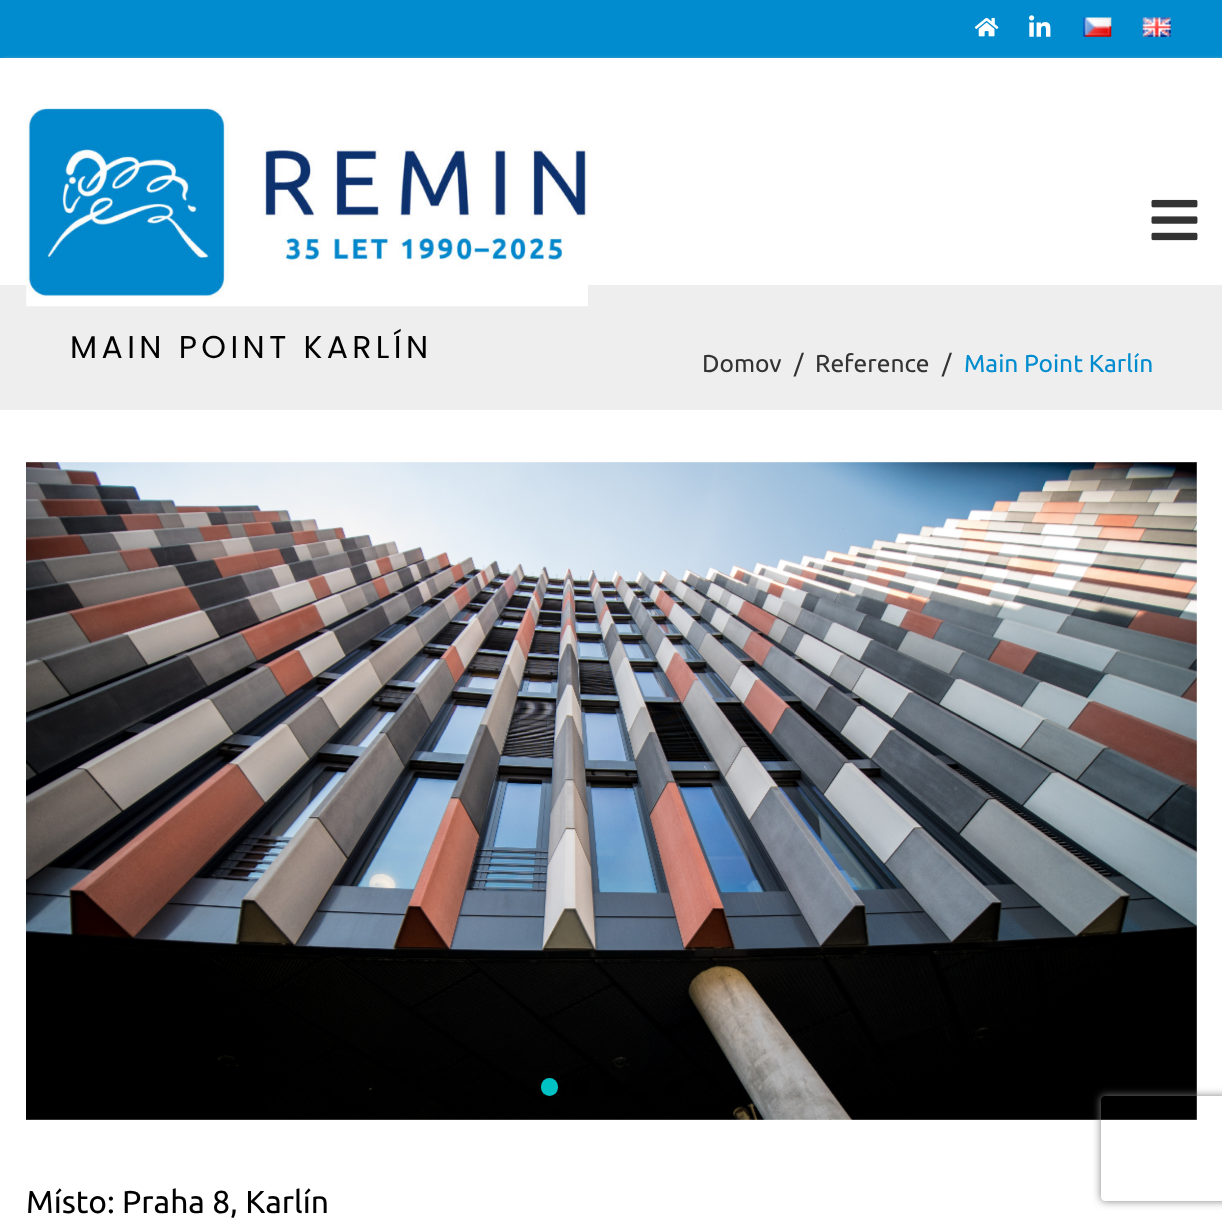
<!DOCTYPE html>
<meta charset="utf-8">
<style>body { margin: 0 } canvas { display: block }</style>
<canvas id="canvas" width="1222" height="1225"></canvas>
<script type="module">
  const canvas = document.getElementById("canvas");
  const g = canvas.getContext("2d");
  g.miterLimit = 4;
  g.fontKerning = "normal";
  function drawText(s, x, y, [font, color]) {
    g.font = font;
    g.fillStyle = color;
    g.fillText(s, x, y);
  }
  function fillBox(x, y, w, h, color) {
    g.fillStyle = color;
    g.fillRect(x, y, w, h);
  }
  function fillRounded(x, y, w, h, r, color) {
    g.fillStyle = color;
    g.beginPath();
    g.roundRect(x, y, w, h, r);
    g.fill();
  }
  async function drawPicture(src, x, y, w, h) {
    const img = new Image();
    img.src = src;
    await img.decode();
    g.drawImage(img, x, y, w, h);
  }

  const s1 = ["31.5px Poppins", "#000000"];
  const s2 = ["24.5px Ubuntu", "#333333"];
  const s3 = ["24.5px Ubuntu", "#008CCE"];
  const s4 = ["31.75px Ubuntu", "#000000"];

  fillBox(0, 0, 1222, 1225, "#FFFFFF");
  fillBox(0, 0, 1222, 58, "#008CCE");
  await drawPicture("pic1.png", 974, 17, 25, 20);
  await drawPicture("pic2.png", 1029, 15, 22, 22);
  await drawPicture("pic3.png", 1083, 17, 29, 20);
  await drawPicture("pic4.png", 1142, 17, 29, 20);
  g.save();
  g.beginPath();
  g.rect(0, 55, 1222, 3);
  g.clip();
  g.fillStyle = "#C8C0C0";
  g.filter = "blur(2.5px)";
  g.beginPath();
  g.rect(2, 60, 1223, 290);
  g.fill();
  g.filter = "none";
  g.restore();
  fillBox(0, 285, 1222, 125, "#EEEEEE");
  await drawPicture("pic5.png", 26, 108, 562, 199);
  await drawPicture("pic6.png", 1151, 199, 47, 42);
  g.letterSpacing = "4.4px";
  drawText("MAIN POINT KARLÍN", 70, 358, s1);
  g.letterSpacing = "0px";
  drawText("Domov", 702, 372, s2);
  drawText("/", 794, 372, s2);
  drawText("Reference", 815, 372, s2);
  drawText("/", 942, 372, s2);
  drawText("Main Point Karlín", 964, 372, s3);
  await drawPicture("pic7.png", 26, 462, 1171, 658);
  fillRounded(541, 1078, 17, 18, 8.5, "#00C1C4");
  g.fillStyle = "rgba(0, 0, 0, 0.67)";
  g.beginPath();
  g.arc(581, 1087, 9, 0, Math.PI * 2);
  g.fill();
  fillRounded(604, 1078, 17, 18, 8.5, "rgba(0, 0, 0, 0.67)");
  fillRounded(667, 1078, 17, 18, 8.5, "rgba(0, 0, 0, 0.67)");
  drawText("Místo: Praha 8, Karlín", 26, 1213, s4);
  g.save();
  g.beginPath();
  g.moveTo(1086, 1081);
  g.lineTo(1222, 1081);
  g.lineTo(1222, 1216);
  g.lineTo(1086, 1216);
  g.closePath();
  g.moveTo(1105, 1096);
  g.lineTo(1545, 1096);
  g.bezierCurveTo(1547, 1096, 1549, 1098, 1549, 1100);
  g.lineTo(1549, 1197);
  g.bezierCurveTo(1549, 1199, 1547, 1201, 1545, 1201);
  g.lineTo(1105, 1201);
  g.bezierCurveTo(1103, 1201, 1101, 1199, 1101, 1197);
  g.lineTo(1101, 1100);
  g.bezierCurveTo(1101, 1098, 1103, 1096, 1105, 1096);
  g.closePath();
  g.clip("evenodd");
  g.fillStyle = "#808080";
  g.filter = "blur(4.5px)";
  g.beginPath();
  g.roundRect(1101, 1096, 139, 105, 4);
  g.fill();
  g.filter = "none";
  g.restore();
</script>
